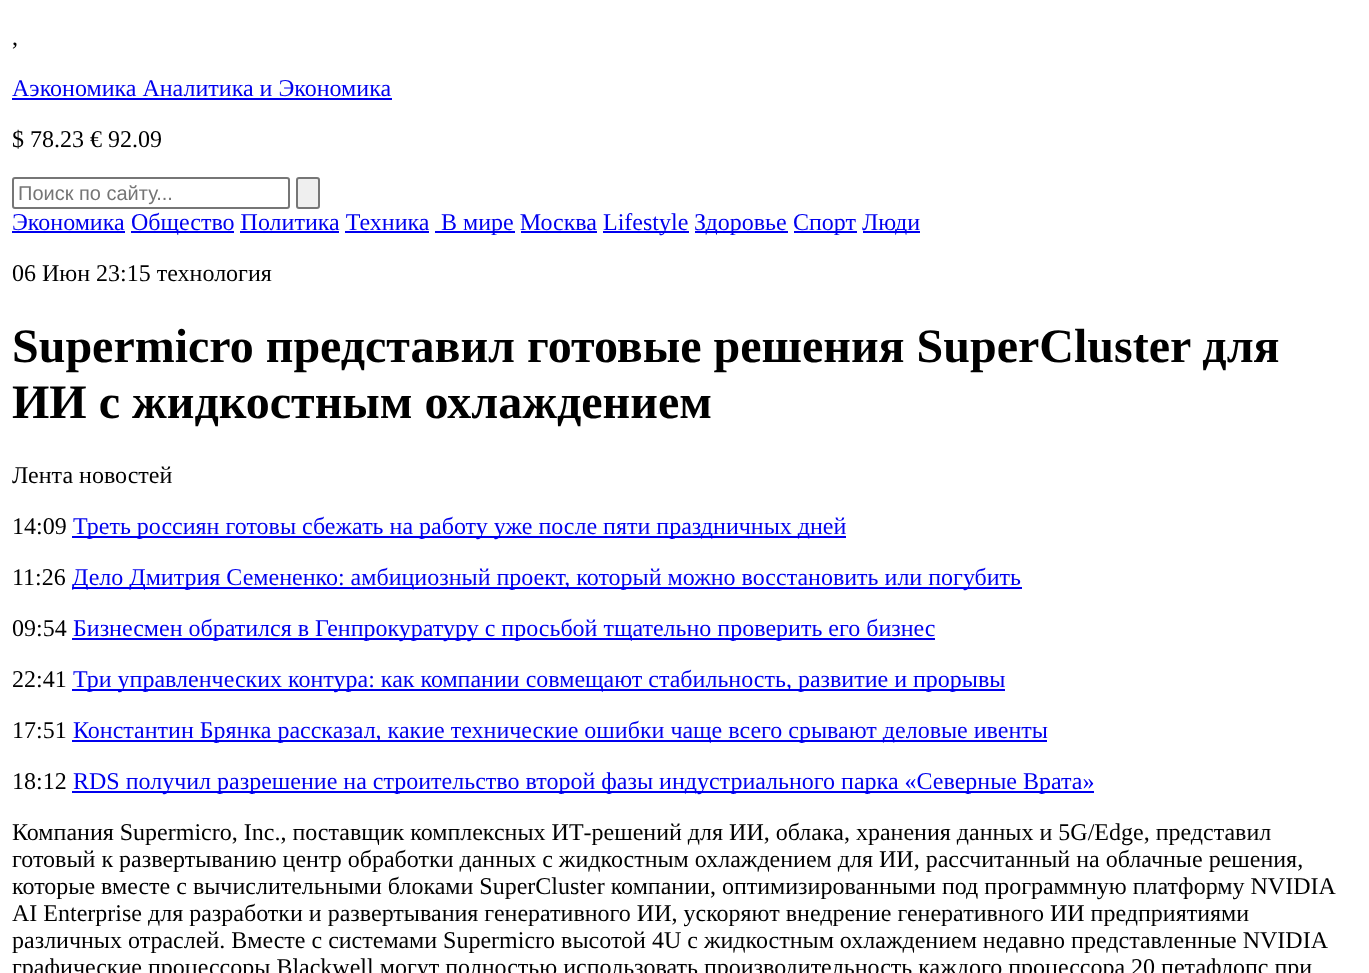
<!DOCTYPE html>
<meta charset="utf-8">
<style>body { margin: 0 } canvas { display: block }</style>
<canvas id="canvas" width="1369" height="973"></canvas>
<script type="module">
  const canvas = document.getElementById("canvas");
  const g = canvas.getContext("2d");
  g.miterLimit = 4;
  g.fontKerning = "normal";
  function drawText(s, x, y, [font, color]) {
    g.font = font;
    g.fillStyle = color;
    g.fillText(s, x, y);
  }
  function fillBox(x, y, w, h, color) {
    g.fillStyle = color;
    g.fillRect(x, y, w, h);
  }

  const s1 = ["24px Liberation Serif", "#000000"];
  const s2 = ["24px Liberation Serif", "#0000EE"];
  const s3 = ["20px Liberation Sans", "#757575"];
  const s4 = ["bold 48px Liberation Serif", "#000000"];

  fillBox(0, 0, 1369, 973, "#FFFFFF");
  drawText(",", 12, 45, s1);
  drawText("Аэкономика Аналитика и Экономика", 12, 96, s2);
  fillBox(12, 98, 380, 2, "#0000EE");
  drawText("$ 78.23 € 92.09", 12, 147, s1);
  g.beginPath();
  g.roundRect(13, 178, 276, 30, 2);
  g.strokeStyle = "#767676";
  g.lineWidth = 2;
  g.stroke();
  drawText("Поиск по сайту...", 18, 200, s3);
  g.fillStyle = "#EFEFEF";
  g.beginPath();
  g.roundRect(297, 178, 22, 30, 2);
  g.fill();
  g.stroke();
  drawText("Экономика", 12, 230, s2);
  fillBox(12, 231, 113, 2, "#0000EE");
  fillBox(131, 231, 103, 2, "#0000EE");
  drawText("Общество Политика Техника", 131, 230, s2);
  fillBox(435, 231, 80, 2, "#0000EE");
  drawText("В мире Москва", 441, 230, s2);
  fillBox(603, 231, 86, 2, "#0000EE");
  drawText("Lifestyle", 603, 230, s2);
  fillBox(695, 231, 93, 2, "#0000EE");
  drawText("Здоровье", 694, 230, s2);
  fillBox(794, 231, 63, 2, "#0000EE");
  drawText("Спорт", 793, 230, s2);
  fillBox(863, 231, 57, 2, "#0000EE");
  drawText("Люди", 862, 230, s2);
  fillBox(240, 231, 99, 2, "#0000EE");
  fillBox(345, 231, 84, 2, "#0000EE");
  fillBox(521, 231, 76, 2, "#0000EE");
  drawText("06 Июн 23:15 технология", 12, 281, s1);
  drawText("Supermicro представил готовые решения SuperCluster для", 12, 362, s4);
  drawText("ИИ с жидкостным охлаждением", 12, 418, s4);
  drawText("Лента новостей", 12, 483, s1);
  drawText("14:09", 12, 534, s1);
  fillBox(72, 536, 774, 2, "#0000EE");
  drawText("Треть россиян готовы сбежать на работу уже после пяти праздничных дней", 73, 534, s2);
  drawText("11:26", 12, 585, s1);
  fillBox(72, 587, 950, 2, "#0000EE");
  drawText("Дело Дмитрия Семененко: амбициозный проект, который можно восстановить или погубить", 72, 585, s2);
  drawText("09:54", 12, 636, s1);
  fillBox(72, 638, 863, 2, "#0000EE");
  drawText("Бизнесмен обратился в Генпрокуратуру с просьбой тщательно проверить его бизнес", 73, 636, s2);
  drawText("22:41", 12, 687, s1);
  fillBox(72, 689, 933, 2, "#0000EE");
  drawText("Три управленческих контура: как компании совмещают стабильность, развитие и прорывы", 73, 687, s2);
  drawText("17:51", 12, 738, s1);
  fillBox(72, 740, 975, 2, "#0000EE");
  drawText("Константин Брянка рассказал, какие технические ошибки чаще всего срывают деловые ивенты", 73, 738, s2);
  drawText("18:12", 12, 789, s1);
  fillBox(72, 791, 1022, 2, "#0000EE");
  drawText("RDS получил разрешение на строительство второй фазы индустриального парка «Северные Врата»", 73, 789, s2);
  drawText("Компания Supermicro, Inc., поставщик комплексных ИТ-решений для ИИ, облака, хранения данных и 5G/Edge, представил", 12, 840, s1);
  drawText("готовый к развертыванию центр обработки данных с жидкостным охлаждением для ИИ, рассчитанный на облачные решения,", 12, 867, s1);
  drawText("которые вместе с вычислительными блоками SuperCluster компании, оптимизированными под программную платформу NVIDIA", 12, 894, s1);
  drawText("AI Enterprise для разработки и развертывания генеративного ИИ, ускоряют внедрение генеративного ИИ предприятиями", 12, 921, s1);
  drawText("различных отраслей. Вместе с системами Supermicro высотой 4U с жидкостным охлаждением недавно представленные NVIDIA", 12, 948, s1);
  drawText("графические процессоры Blackwell могут полностью использовать производительность каждого процессора 20 петафлопс при", 12, 975, s1);
</script>
